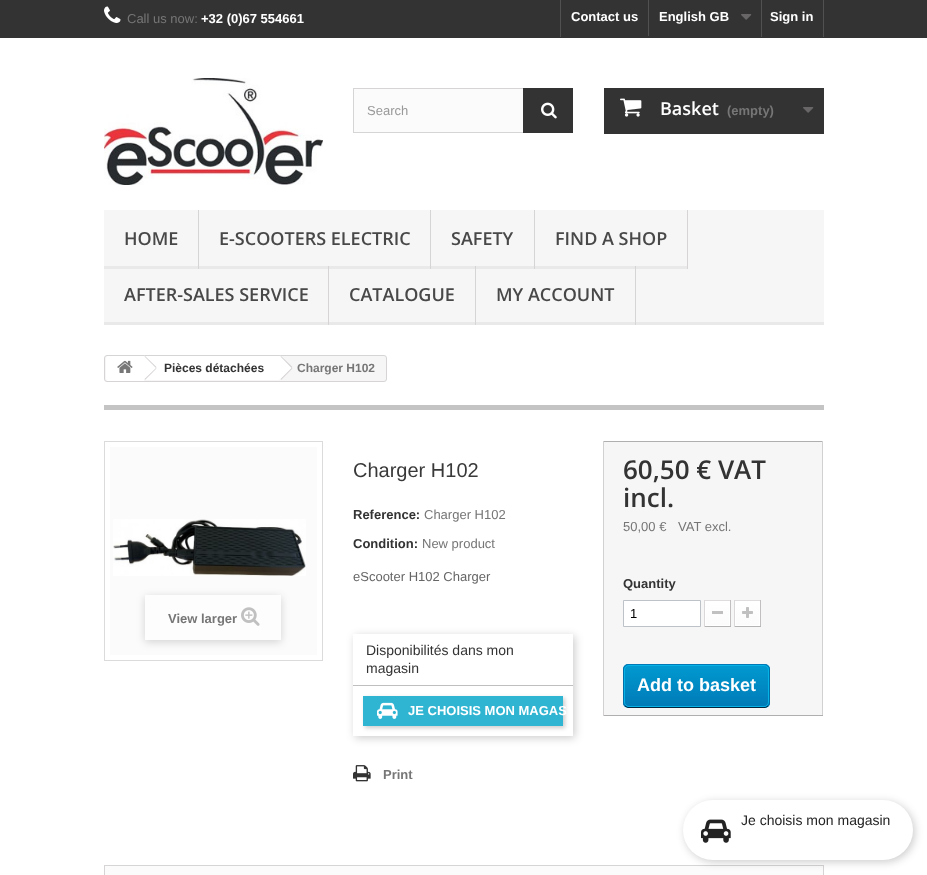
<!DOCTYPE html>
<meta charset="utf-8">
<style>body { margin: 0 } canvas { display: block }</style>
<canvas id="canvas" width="927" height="875"></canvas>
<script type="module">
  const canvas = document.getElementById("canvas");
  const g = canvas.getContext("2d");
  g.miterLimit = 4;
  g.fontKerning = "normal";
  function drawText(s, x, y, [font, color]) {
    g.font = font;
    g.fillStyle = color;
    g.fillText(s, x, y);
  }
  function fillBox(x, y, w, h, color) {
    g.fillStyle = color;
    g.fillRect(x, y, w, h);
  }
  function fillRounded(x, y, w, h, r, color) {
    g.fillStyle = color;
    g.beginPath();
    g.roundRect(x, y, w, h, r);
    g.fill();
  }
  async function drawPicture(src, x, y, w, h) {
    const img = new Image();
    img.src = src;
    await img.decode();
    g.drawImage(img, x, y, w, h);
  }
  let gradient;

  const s1 = ["13px Liberation Sans", "#777676"];
  const s2 = ["bold 13px Liberation Sans", "#FFFFFF"];
  const s3 = ["13px Liberation Sans", "#999999"];
  const s4 = ["600 18px Open Sans", "#FFFFFF"];
  const s5 = ["bold 13px Liberation Sans", "#777676"];
  const s6 = ["600 18px Open Sans", "#484848"];
  const s7 = ["bold 12px Liberation Sans", "#333333"];
  const s8 = ["bold 12px Liberation Sans", "#777676"];
  const s9 = ["20px Liberation Sans", "#3A3939"];
  const s10 = ["bold 13px Liberation Sans", "#333333"];
  const s11 = ["13px Liberation Sans", "#666666"];
  const s12 = ["14px Liberation Sans", "#333333"];
  const s13 = ["600 26px Open Sans", "#333333"];
  const s14 = ["13px Liberation Sans", "#000000"];
  const s15 = ["bold 18px Liberation Sans", "#FFFFFF"];
  const s16 = ["14px Liberation Sans", "#232323"];

  fillBox(0, 0, 927, 875, "#FFFFFF");
  fillBox(0, 0, 927, 38, "#333333");
  await drawPicture("pic1.png", 104, 6, 17, 17);
  drawText("Call us now:", 127, 23, s1);
  drawText("+32 (0)67 554661", 201, 23, s2);
  fillBox(560, 0, 1, 37, "#515151");
  drawText("Contact us", 571, 21, s2);
  fillBox(648, 0, 1, 36, "#515151");
  drawText("English GB", 659, 21, s2);
  await drawPicture("pic2.png", 741, 14, 11, 6);
  fillBox(823, 0, 1, 37, "#515151");
  fillBox(761, 0, 1, 37, "#515151");
  drawText("Sign in", 770, 21, s2);
  await drawPicture("pic3.png", 104, 78, 219, 107);
  fillBox(354, 89, 169, 43, "#FBFBFB");
  g.strokeStyle = "#D6D4D4";
  g.strokeRect(353.5, 88.5, 219, 44);
  drawText("Search", 367, 115, s3);
  fillBox(523, 88, 50, 45, "#333333");
  await drawPicture("pic4.png", 541, 102, 16, 17);
  fillBox(604, 88, 220, 46, "#333333");
  await drawPicture("pic5.png", 620, 98, 22, 19);
  drawText("Basket", 660, 115, s4);
  drawText("(empty)", 727, 115, s5);
  await drawPicture("pic2.png", 803, 107, 11, 6);
  fillBox(104, 210, 720, 112, "#F6F6F6");
  fillBox(104, 322, 720, 3, "#E9E9E9");
  fillBox(198, 210, 1, 59, "#D6D4D4");
  fillBox(104, 266, 94, 3, "#E9E9E9");
  drawText("HOME", 124, 245, s6);
  fillBox(430, 210, 1, 59, "#D6D4D4");
  fillBox(199, 266, 231, 3, "#E9E9E9");
  drawText("E-SCOOTERS ELECTRIC", 219, 245, s6);
  fillBox(534, 210, 1, 59, "#D6D4D4");
  fillBox(431, 266, 103, 3, "#E9E9E9");
  drawText("SAFETY", 451, 245, s6);
  fillBox(687, 210, 1, 59, "#D6D4D4");
  fillBox(535, 266, 152, 3, "#E9E9E9");
  drawText("FIND A SHOP", 555, 245, s6);
  fillBox(328, 266, 1, 59, "#D6D4D4");
  drawText("AFTER-SALES SERVICE", 124, 301, s6);
  fillBox(475, 266, 1, 59, "#D6D4D4");
  drawText("CATALOGUE", 349, 301, s6);
  fillBox(635, 266, 1, 59, "#D6D4D4");
  drawText("MY ACCOUNT", 496, 301, s6);
  g.fillStyle = "#F6F6F6";
  g.beginPath();
  g.roundRect(104.5, 355.5, 282, 26, 2.5);
  g.fill();
  g.stroke();
  g.fillStyle = "#FFFFFF";
  g.beginPath();
  g.roundRect(106, 356, 38, 25, [3, 0, 0, 3]);
  g.fill();
  fillBox(144, 356, 135, 24, "#FFFFFF");
  g.beginPath();
  g.moveTo(146, 356.5);
  g.lineTo(156, 366.5);
  g.bezierCurveTo(156.5, 367, 156.5, 368.5, 156, 369.5);
  g.lineTo(146, 379);
  g.bezierCurveTo(145, 380, 144, 380, 143, 379);
  g.lineTo(133, 369.5);
  g.bezierCurveTo(132.5, 368.5, 132.5, 367, 133, 366.5);
  g.lineTo(143, 356.5);
  g.bezierCurveTo(144, 355.5, 145, 355.5, 146, 356.5);
  g.closePath();
  g.fill();
  await drawPicture("pic6.png", 117, 360, 16, 13);
  g.fillStyle = "#D6D4D4";
  g.beginPath();
  g.moveTo(145, 356);
  g.lineTo(156.5, 367);
  g.lineTo(156, 368);
  g.lineTo(144.5, 356.5);
  g.closePath();
  g.moveTo(156, 368);
  g.lineTo(156.5, 368.5);
  g.lineTo(145, 380);
  g.lineTo(144.5, 379);
  g.closePath();
  g.fill();
  drawText("Pièces détachées", 164, 372, s7);
  g.fillStyle = "#FFFFFF";
  g.beginPath();
  g.moveTo(281.5, 356.5);
  g.lineTo(291.5, 366.5);
  g.bezierCurveTo(292.5, 367, 292.5, 368.5, 291.5, 369.5);
  g.lineTo(281.5, 379);
  g.bezierCurveTo(281, 380, 279.5, 380, 279, 379);
  g.lineTo(269, 369.5);
  g.bezierCurveTo(268, 368.5, 268, 367, 269, 366.5);
  g.lineTo(279, 356.5);
  g.bezierCurveTo(279.5, 355.5, 281, 355.5, 281.5, 356.5);
  g.closePath();
  g.fill();
  g.fillStyle = "#D6D4D4";
  g.beginPath();
  g.moveTo(281, 356);
  g.lineTo(292.5, 367);
  g.lineTo(291.5, 368);
  g.lineTo(280.5, 356.5);
  g.closePath();
  g.moveTo(291.5, 368);
  g.lineTo(292.5, 368.5);
  g.lineTo(281, 380);
  g.lineTo(280.5, 379);
  g.closePath();
  g.fill();
  drawText("Charger H102", 297, 372, s8);
  fillBox(104, 405, 720, 5, "#C4C4C4");
  g.strokeStyle = "#DBDBDB";
  g.strokeRect(104.5, 441.5, 218, 219);
  fillBox(110, 447, 207, 208, "#FBFBFB");
  await drawPicture("pic7.png", 113, 519, 193, 57);
  g.fillStyle = "rgba(0, 0, 0, 0.16)";
  g.filter = "blur(4px)";
  g.beginPath();
  g.rect(145, 597, 136, 45);
  g.fill();
  g.filter = "none";
  fillBox(145, 595, 136, 45, "#FDFDFD");
  drawText("View larger", 168, 623, s5);
  await drawPicture("pic8.png", 241, 607, 19, 19);
  drawText("Charger H102", 353, 477, s9);
  drawText("Reference:", 353, 519, s10);
  drawText("Charger H102", 424, 519, s1);
  drawText("Condition:", 353, 548, s10);
  drawText("New product", 422, 548, s1);
  drawText("eScooter H102 Charger", 353, 581, s11);
  g.save();
  g.beginPath();
  g.moveTo(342, 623);
  g.lineTo(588, 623);
  g.lineTo(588, 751);
  g.lineTo(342, 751);
  g.closePath();
  g.moveTo(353, 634);
  g.lineTo(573, 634);
  g.lineTo(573, 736);
  g.lineTo(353, 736);
  g.closePath();
  g.clip("evenodd");
  g.fillStyle = "rgba(0, 0, 0, 0.2)";
  g.filter = "blur(4px)";
  g.beginPath();
  g.rect(355, 636, 220, 102);
  g.fill();
  g.filter = "none";
  g.restore();
  drawText("Disponibilités dans mon", 366, 655, s12);
  drawText("magasin", 366, 673, s12);
  fillBox(353, 685, 220, 1, "#BFBFBF");
  g.fillStyle = "rgba(0, 0, 0, 0.2)";
  g.filter = "blur(2px)";
  g.beginPath();
  g.rect(365, 698, 200, 30);
  g.fill();
  g.filter = "none";
  fillBox(363, 696, 200, 30, "#2FB5D2");
  await drawPicture("pic9.png", 377, 702, 21, 17);
  drawText("JE CHOISIS MON MAGAS", 408, 715, s2);
  await drawPicture("pic10.png", 353, 765, 18, 17);
  drawText("Print", 383, 779, s5);
  fillBox(604, 442, 218, 273, "#F6F6F6");
  fillBox(603, 441, 220, 1, "#B0AFAF");
  fillBox(822, 441, 1, 275, "#D2D0D0");
  fillBox(603, 715, 220, 1, "#B0AFAF");
  fillBox(603, 441, 1, 275, "#D2D0D0");
  drawText("60,50 € VAT", 623, 479, s13);
  drawText("incl.", 623, 507, s13);
  drawText("50,00 €", 623, 531, s1);
  drawText("VAT excl.", 678, 531, s1);
  drawText("Quantity", 623, 588, s10);
  g.fillStyle = "#FFFFFF";
  g.beginPath();
  g.rect(623.5, 600.5, 77, 26);
  g.fill();
  g.strokeStyle = "#BDC2C9";
  g.stroke();
  drawText("1", 630, 618, s14);
  fillBox(704, 600, 27, 1, "#DEDCDC");
  fillBox(730, 600, 1, 27, "#C1BFBF");
  fillBox(704, 626, 27, 1, "#B5B4B4");
  fillBox(704, 600, 1, 27, "#DAD8D8");
  gradient = g.createLinearGradient(718, 602, 718, 625);
  gradient.addColorStop(0, "#FFFFFF");
  gradient.addColorStop(1, "#FBFBFB");
  g.fillStyle = gradient;
  g.fillRect(706, 602, 23, 23);
  g.strokeStyle = "#FFFFFF";
  g.strokeRect(705.5, 601.5, 24, 24);
  fillBox(712, 611, 11, 3, "#C0C0C0");
  fillBox(734, 600, 27, 1, "#DEDCDC");
  fillBox(760, 600, 1, 27, "#C1BFBF");
  fillBox(734, 626, 27, 1, "#B5B4B4");
  fillBox(734, 600, 1, 27, "#DAD8D8");
  gradient = g.createLinearGradient(748, 602, 748, 625);
  gradient.addColorStop(0, "#FFFFFF");
  gradient.addColorStop(1, "#FBFBFB");
  g.fillStyle = gradient;
  g.fillRect(736, 602, 23, 23);
  g.strokeRect(735.5, 601.5, 24, 24);
  await drawPicture("pic11.png", 742, 607, 11, 11);
  g.save();
  g.beginPath();
  g.roundRect(623, 664, 147, 44, 5);
  g.clip();
  gradient = g.createLinearGradient(697, 623, 697, 665);
  gradient.addColorStop(0, "#009AD0");
  gradient.addColorStop(1, "#007AB7");
  g.fillStyle = gradient;
  g.fillRect(623, 664, 147, 1);
  gradient = g.createLinearGradient(697, 665, 697, 707);
  gradient.addColorStop(0, "#009AD0");
  gradient.addColorStop(1, "#007AB7");
  g.fillStyle = gradient;
  g.fillRect(623, 665, 147, 42);
  gradient = g.createLinearGradient(697, 707, 697, 749);
  gradient.addColorStop(0, "#009AD0");
  gradient.addColorStop(1, "#007AB7");
  g.fillStyle = gradient;
  g.fillRect(623, 707, 147, 1);
  g.restore();
  g.beginPath();
  g.moveTo(625, 666);
  g.lineTo(627.5, 664.5);
  g.lineTo(742, 664.5);
  g.lineTo(765, 664.5);
  g.lineTo(768, 666);
  g.strokeStyle = "#0079B6";
  g.stroke();
  g.beginPath();
  g.moveTo(768, 666);
  g.bezierCurveTo(769, 666.5, 769.5, 668, 769.5, 669);
  g.lineTo(769.5, 703);
  g.bezierCurveTo(769.5, 704, 769, 705.5, 768, 706);
  g.strokeStyle = "#006FA8";
  g.stroke();
  g.beginPath();
  g.moveTo(768, 706);
  g.lineTo(765.5, 707.5);
  g.lineTo(651, 707.5);
  g.lineTo(628, 707.5);
  g.lineTo(625, 706);
  g.strokeStyle = "#012740";
  g.stroke();
  g.beginPath();
  g.moveTo(625, 706);
  g.bezierCurveTo(624, 705.5, 623.5, 704, 623.5, 703);
  g.lineTo(623.5, 669);
  g.bezierCurveTo(623.5, 668, 624, 666.5, 625, 666);
  g.strokeStyle = "#006FA8";
  g.stroke();
  g.beginPath();
  g.roundRect(624.5, 665.5, 144, 41, 4.5);
  g.strokeStyle = "#06B2E6";
  g.stroke();
  drawText("Add to basket", 637, 691, s15);
  fillBox(105, 866, 718, 9, "#FBFBFB");
  fillBox(104, 865, 720, 1, "#D6D4D4");
  fillBox(823, 865, 1, 10, "#D6D4D4");
  fillBox(104, 865, 1, 10, "#D6D4D4");
  g.fillStyle = "rgba(0, 0, 0, 0.2)";
  g.filter = "blur(4px)";
  g.beginPath();
  g.roundRect(685, 802, 230, 60, 30);
  g.fill();
  g.filter = "none";
  fillRounded(683, 800, 230, 60, 30, "#FFFFFF");
  await drawPicture("pic12.png", 701, 819, 30, 24);
  drawText("Je choisis mon magasin", 741, 825, s16);
</script>
